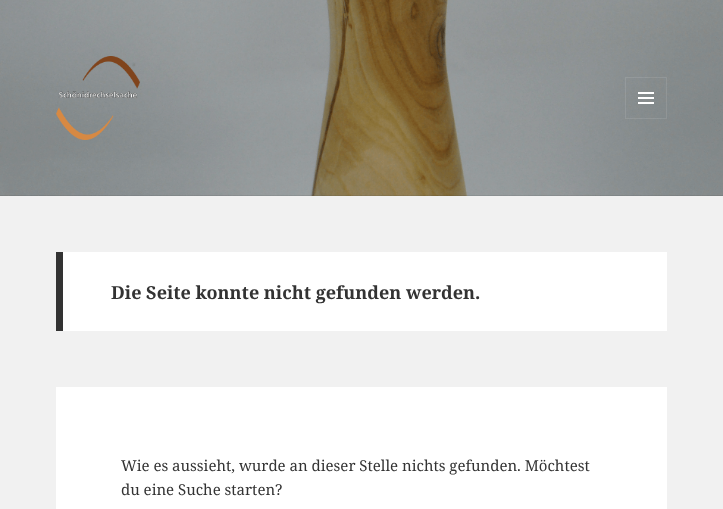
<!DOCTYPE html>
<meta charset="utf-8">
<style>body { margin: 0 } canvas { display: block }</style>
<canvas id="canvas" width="723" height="509"></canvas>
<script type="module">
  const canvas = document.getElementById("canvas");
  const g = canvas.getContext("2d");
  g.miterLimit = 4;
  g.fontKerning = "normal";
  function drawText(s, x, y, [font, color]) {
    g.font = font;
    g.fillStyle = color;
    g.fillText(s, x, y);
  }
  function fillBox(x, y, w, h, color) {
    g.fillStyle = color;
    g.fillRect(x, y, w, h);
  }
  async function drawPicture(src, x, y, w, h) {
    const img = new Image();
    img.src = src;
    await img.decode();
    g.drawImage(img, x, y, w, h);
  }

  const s1 = ["bold 18px Noto Serif", "#333333"];
  const s2 = ["15px Noto Serif", "#333333"];

  fillBox(0, 0, 723, 509, "#F1F1F1");
  await drawPicture("pic1.png", 0, 0, 723, 196);
  fillBox(0, 195, 723, 1, "rgba(51, 51, 51, 0.1)");
  await drawPicture("pic2.png", 56, 56, 84, 84);
  g.strokeStyle = "rgba(255, 255, 255, 0.1)";
  g.strokeRect(625.5, 77.5, 41, 41);
  await drawPicture("pic3.png", 638, 92, 16, 12);
  fillBox(63, 252, 604, 79, "#FFFFFF");
  fillBox(56, 252, 7, 79, "#333333");
  drawText("Die Seite konnte nicht gefunden werden.", 111, 299, s1);
  fillBox(56, 387, 611, 122, "#FFFFFF");
  drawText("Wie es aussieht, wurde an dieser Stelle nichts gefunden. Möchtest", 121, 471, s2);
  drawText("du eine Suche starten?", 121, 495, s2);
</script>
